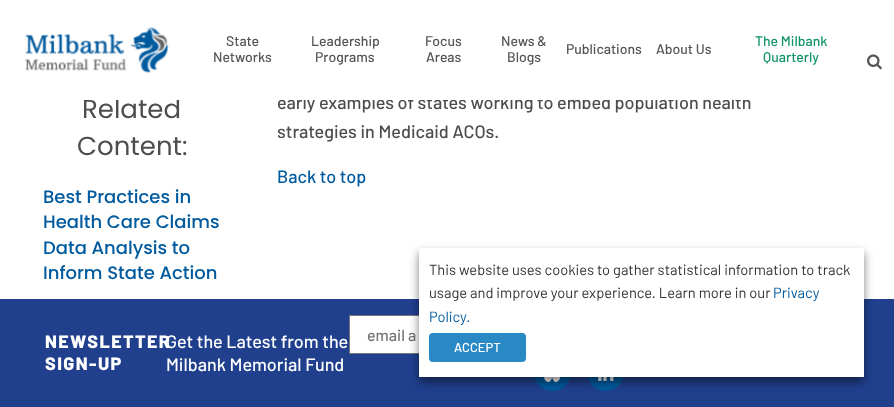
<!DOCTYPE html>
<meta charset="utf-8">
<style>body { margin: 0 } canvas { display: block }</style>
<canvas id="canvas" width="894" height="407"></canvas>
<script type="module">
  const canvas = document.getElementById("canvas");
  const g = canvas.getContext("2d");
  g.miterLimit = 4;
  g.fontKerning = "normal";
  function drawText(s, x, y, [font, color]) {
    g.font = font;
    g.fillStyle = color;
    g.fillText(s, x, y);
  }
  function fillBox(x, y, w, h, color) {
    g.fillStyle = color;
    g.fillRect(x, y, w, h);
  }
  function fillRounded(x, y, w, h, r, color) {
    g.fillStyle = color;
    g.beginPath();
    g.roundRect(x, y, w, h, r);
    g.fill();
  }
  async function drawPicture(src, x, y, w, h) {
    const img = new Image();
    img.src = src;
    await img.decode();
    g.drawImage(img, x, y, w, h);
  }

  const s1 = ["26px Poppins", "#4D4D4D"];
  const s2 = ["500 18px Barlow", "#4D4D4D"];
  const s3 = ["500 14px Barlow", "#555555"];
  const s4 = ["500 14px Barlow", "#149568"];
  const s5 = ["500 18px Poppins", "#005A9E"];
  const s6 = ["500 18px Barlow", "#005A9E"];
  const s7 = ["800 18px Barlow", "#FFFFFF"];
  const s8 = ["500 18px Barlow", "#FFFFFF"];
  const s9 = ["500 16px Barlow", "#757575"];
  const s10 = ["14.7px Barlow", "#333333"];
  const s11 = ["14.7px Barlow", "#005A9E"];
  const s12 = ["500 13px Barlow", "#FFFFFF"];

  fillBox(0, 0, 894, 407, "#FFFFFF");
  drawText("Related", 82, 118, s1);
  drawText("early examples of states working to embed population health", 277, 109, s2);
  fillBox(84, 96, 665, 4, "#FFFFFF");
  await drawPicture("pic1.png", 25, 27, 144, 46);
  drawText("State", 226, 46, s3);
  drawText("Networks", 213, 62, s3);
  drawText("Leadership", 311, 46, s3);
  drawText("Programs", 315, 62, s3);
  drawText("Focus", 425, 46, s3);
  drawText("Areas", 426, 62, s3);
  drawText("News &", 501, 46, s3);
  drawText("Blogs", 507, 62, s3);
  drawText("Publications", 566, 54, s3);
  drawText("About Us", 656, 54, s3);
  drawText("The Milbank", 755, 46, s4);
  drawText("Quarterly", 763, 62, s4);
  await drawPicture("pic2.png", 867, 54, 15, 16);
  drawText("Content:", 77, 155, s1);
  drawText("Best Practices in", 43, 203, s5);
  drawText("Health Care Claims", 43, 228, s5);
  drawText("Data Analysis to", 43, 254, s5);
  drawText("Inform State Action", 43, 279, s5);
  drawText("strategies in Medicaid ACOs.", 277, 138, s2);
  drawText("Back to top", 277, 183, s6);
  fillBox(0, 299, 894, 108, "#20408E");
  g.letterSpacing = "1.4px";
  drawText("NEWSLETTER", 45, 348, s7);
  drawText("SIGN-UP", 45, 370, s7);
  g.letterSpacing = "0px";
  drawText("Get the Latest from the", 166, 348, s8);
  drawText("Milbank Memorial Fund", 166, 371, s8);
  fillBox(350, 316, 69, 37, "#FFFFFF");
  g.strokeStyle = "#767779";
  g.strokeRect(349.5, 315.5, 275, 38);
  drawText("email a", 367, 341, s9);
  g.fillStyle = "#005A9E";
  g.beginPath();
  g.arc(552.5, 372.5, 18.5, 0, Math.PI * 2);
  g.fill();
  await drawPicture("pic3.png", 544, 377, 16, 5);
  g.beginPath();
  g.arc(605.5, 372.5, 18.5, 0, Math.PI * 2);
  g.fill();
  await drawPicture("pic4.png", 598, 377, 16, 4);
  g.fillStyle = "rgba(0, 0, 0, 0.5)";
  g.filter = "blur(5px)";
  g.beginPath();
  g.rect(419, 253, 445, 129);
  g.fill();
  g.filter = "none";
  fillBox(419, 248, 445, 129, "#FFFFFF");
  drawText("This website uses cookies to gather statistical information to track", 429, 275, s10);
  drawText("usage and improve your experience. Learn more in our", 429, 298, s10);
  drawText("Privacy", 773, 298, s11);
  drawText("Policy.", 429, 322, s11);
  fillRounded(429, 333, 97, 29, 4, "#2989C5");
  drawText("ACCEPT", 454, 352, s12);
</script>
